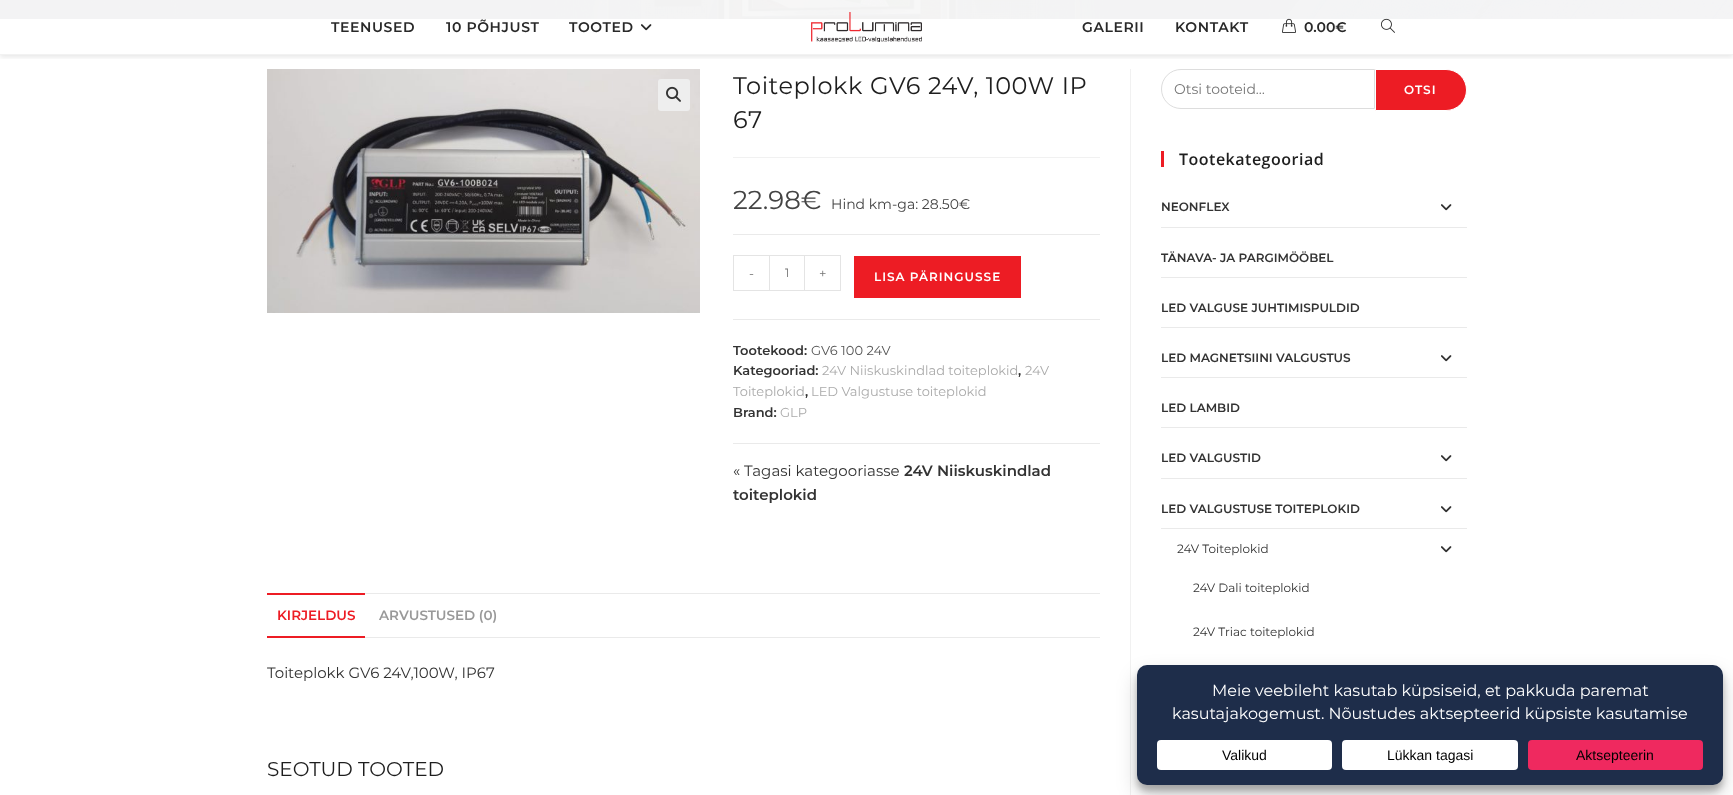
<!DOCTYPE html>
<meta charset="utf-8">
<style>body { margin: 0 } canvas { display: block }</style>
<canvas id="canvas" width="1733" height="795"></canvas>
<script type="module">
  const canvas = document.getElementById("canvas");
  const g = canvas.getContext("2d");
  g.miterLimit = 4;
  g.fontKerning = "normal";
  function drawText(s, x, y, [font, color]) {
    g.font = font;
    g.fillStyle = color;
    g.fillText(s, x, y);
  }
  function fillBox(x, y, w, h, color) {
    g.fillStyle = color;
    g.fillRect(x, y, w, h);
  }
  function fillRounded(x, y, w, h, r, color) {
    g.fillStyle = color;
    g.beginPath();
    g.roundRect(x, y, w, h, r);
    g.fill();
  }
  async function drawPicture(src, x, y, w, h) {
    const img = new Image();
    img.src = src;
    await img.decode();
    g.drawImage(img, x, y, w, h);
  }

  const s1 = ["600 14px Montserrat", "#292929"];
  const s2 = ["24px Montserrat", "#1E1E1E"];
  const s3 = ["26px Montserrat", "#444444"];
  const s4 = ["14px Montserrat", "#444444"];
  const s5 = ["13px Montserrat", "#757575"];
  const s6 = ["12px Montserrat", "#757575"];
  const s7 = ["600 12px Montserrat", "#FFFFFF"];
  const s8 = ["600 13px Montserrat", "#333333"];
  const s9 = ["13px Montserrat", "#555555"];
  const s10 = ["13px Montserrat", "#ABABAB"];
  const s11 = ["15px Montserrat", "#333333"];
  const s12 = ["600 15px Montserrat", "#333333"];
  const s13 = ["600 13.5px Montserrat", "#ED1C24"];
  const s14 = ["600 13.5px Montserrat", "#999999"];
  const s15 = ["20px Montserrat", "#1E1E1E"];
  const s16 = ["14px Montserrat", "#757575"];
  const s17 = ["600 16px Open Sans", "#1E1E1E"];
  const s18 = ["600 12px Montserrat", "#333333"];
  const s19 = ["12px Montserrat", "#333333"];
  const s20 = ["16px Montserrat", "#FFFFFF"];
  const s21 = ["14px Liberation Sans", "#000000"];

  fillBox(0, 0, 1733, 795, "#FFFFFF");
  await drawPicture("pic5.png", 0, 0, 1733, 19);
  g.save();
  g.beginPath();
  g.rect(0, 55, 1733, 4);
  g.clip();
  g.fillStyle = "rgba(13, 13, 13, 0.1)";
  g.filter = "blur(2.5px)";
  g.beginPath();
  g.rect(0, 2, 1733, 55);
  g.fill();
  g.filter = "none";
  g.restore();
  fillBox(0, 54, 1733, 1, "#F2F2F2");
  g.letterSpacing = "0.6px";
  drawText("TEENUSED", 331, 32, s1);
  drawText("10 PÕHJUST", 446, 32, s1);
  drawText("TOOTED", 569, 32, s1);
  await drawPicture("pic1.png", 641, 24, 11, 7);
  await drawPicture("pic2.png", 811, 12, 111, 30);
  drawText("GALERII", 1082, 32, s1);
  drawText("KONTAKT", 1175, 32, s1);
  await drawPicture("pic3.png", 1282, 18, 14, 15);
  g.letterSpacing = "0px";
  drawText("0.00€", 1304, 32, s1);
  await drawPicture("pic4.png", 1381, 18, 14, 15);
  fillBox(1130, 69, 1, 726, "#F1F1F1");
  await drawPicture("pic6.png", 267, 69, 433, 244);
  fillRounded(658, 79, 32, 32, 3, "#EEEEEE");
  await drawPicture("pic7.png", 666, 86, 15, 16);
  fillBox(733, 157, 367, 1, "#F1F1F1");
  g.letterSpacing = "0.6px";
  drawText("Toiteplokk GV6 24V, 100W IP", 733, 94, s2);
  drawText("67", 733, 128, s2);
  g.letterSpacing = "0px";
  drawText("22.98€", 733, 209, s3);
  drawText("Hind km-ga: 28.50€", 831, 209, s4);
  fillBox(733, 234, 367, 1, "#EAEAEA");
  fillBox(733, 319, 367, 1, "#EAEAEA");
  fillBox(733, 255, 36, 1, "#E4E4E4");
  fillBox(733, 290, 36, 1, "#E4E4E4");
  fillBox(733, 255, 1, 36, "#E4E4E4");
  drawText("-", 749, 278, s5);
  g.strokeStyle = "#E4E4E4";
  g.strokeRect(769.5, 255.5, 35, 35);
  drawText("1", 785, 277, s6);
  fillBox(805, 255, 36, 1, "#E4E4E4");
  fillBox(840, 255, 1, 36, "#E4E4E4");
  fillBox(805, 290, 36, 1, "#E4E4E4");
  drawText("+", 819, 278, s5);
  fillBox(854, 256, 167, 42, "#ED1C24");
  g.letterSpacing = "1px";
  drawText("LISA PÄRINGUSSE", 874, 281, s7);
  fillBox(733, 443, 367, 1, "#EAEAEA");
  g.letterSpacing = "0px";
  drawText("Tootekood:", 733, 355, s8);
  drawText("GV6 100 24V", 811, 355, s9);
  drawText("Kategooriad:", 733, 375, s8);
  drawText("24V Niiskuskindlad toiteplokid", 822, 375, s10);
  drawText(",", 1018, 375, s8);
  drawText("24V", 1025, 375, s10);
  drawText("Toiteplokid", 733, 396, s10);
  drawText(",", 805, 396, s8);
  drawText("LED Valgustuse toiteplokid", 811, 396, s10);
  drawText("Brand:", 733, 417, s8);
  drawText("GLP", 780, 417, s10);
  drawText("« Tagasi kategooriasse", 733, 476, s11);
  drawText("24V Niiskuskindlad", 904, 476, s12);
  drawText("toiteplokid", 733, 500, s12);
  fillBox(365, 593, 735, 1, "#EAEAEA");
  fillBox(365, 637, 735, 1, "#EAEAEA");
  fillBox(267, 593, 98, 2, "#ED1C24");
  fillBox(267, 636, 98, 2, "#ED1C24");
  drawText("KIRJELDUS", 277, 620, s13);
  drawText("ARVUSTUSED (0)", 379, 620, s14);
  drawText("Toiteplokk GV6 24V,100W, IP67", 267, 678, s11);
  drawText("SEOTUD TOOTED", 267, 776, s15);
  g.beginPath();
  g.roundRect(1161.5, 69.5, 213, 39, [19.5, 0, 0, 19.5]);
  g.strokeStyle = "#DDDDDD";
  g.stroke();
  drawText("Otsi tooteid…", 1174, 94, s16);
  g.fillStyle = "#ED1C24";
  g.beginPath();
  g.roundRect(1375.5, 69.5, 91, 41, [0, 20.5, 20.5, 0]);
  g.fill();
  g.strokeStyle = "#FFFFFF";
  g.stroke();
  g.letterSpacing = "1px";
  drawText("OTSI", 1404, 94, s7);
  fillBox(1161, 151, 3, 16, "#ED1C24");
  g.letterSpacing = "0.5px";
  drawText("Tootekategooriad", 1179, 165, s17);
  fillBox(1161, 227, 306, 1, "#EAEAEA");
  g.letterSpacing = "0px";
  drawText("NEONFLEX", 1161, 211, s18);
  await drawPicture("pic8.png", 1441, 204, 11, 7);
  fillBox(1161, 277, 306, 1, "#EAEAEA");
  drawText("TÄNAVA- JA PARGIMÖÖBEL", 1161, 262, s18);
  fillBox(1161, 327, 306, 1, "#EAEAEA");
  drawText("LED VALGUSE JUHTIMISPULDID", 1161, 312, s18);
  fillBox(1161, 377, 306, 1, "#EAEAEA");
  drawText("LED MAGNETSIINI VALGUSTUS", 1161, 362, s18);
  await drawPicture("pic8.png", 1441, 355, 11, 7);
  fillBox(1161, 427, 306, 1, "#EAEAEA");
  drawText("LED LAMBID", 1161, 412, s18);
  fillBox(1161, 478, 306, 1, "#EAEAEA");
  drawText("LED VALGUSTID", 1161, 462, s18);
  await drawPicture("pic8.png", 1441, 455, 11, 7);
  fillBox(1161, 528, 306, 1, "#EAEAEA");
  drawText("LED VALGUSTUSE TOITEPLOKID", 1161, 513, s18);
  await drawPicture("pic8.png", 1441, 506, 11, 7);
  drawText("24V Toiteplokid", 1177, 553, s19);
  await drawPicture("pic8.png", 1441, 546, 11, 7);
  drawText("24V Dali toiteplokid", 1193, 592, s19);
  drawText("24V Triac toiteplokid", 1193, 636, s19);
  g.fillStyle = "rgba(0, 0, 0, 0.23)";
  g.filter = "blur(3px)";
  g.beginPath();
  g.roundRect(1137, 671, 586, 120, 10);
  g.fill();
  g.filter = "none";
  g.fillStyle = "rgba(0, 0, 0, 0.19)";
  g.filter = "blur(10px)";
  g.beginPath();
  g.roundRect(1137, 675, 586, 120, 10);
  g.fill();
  g.filter = "none";
  fillRounded(1137, 665, 586, 120, 10, "#1E2D4A");
  drawText("Meie veebileht kasutab küpsiseid, et pakkuda paremat", 1212, 696, s20);
  drawText("kasutajakogemust. Nõustudes aktsepteerid küpsiste kasutamise", 1172, 719, s20);
  fillRounded(1157, 740, 175, 30, 4, "#FFFFFF");
  drawText("Valikud", 1222, 760, s21);
  fillRounded(1342, 740, 176, 30, 4, "#FFFFFF");
  drawText("Lükkan tagasi", 1387, 760, s21);
  fillRounded(1528, 740, 175, 30, 4, "#EF295F");
  drawText("Aktsepteerin", 1576, 760, s21);
</script>
